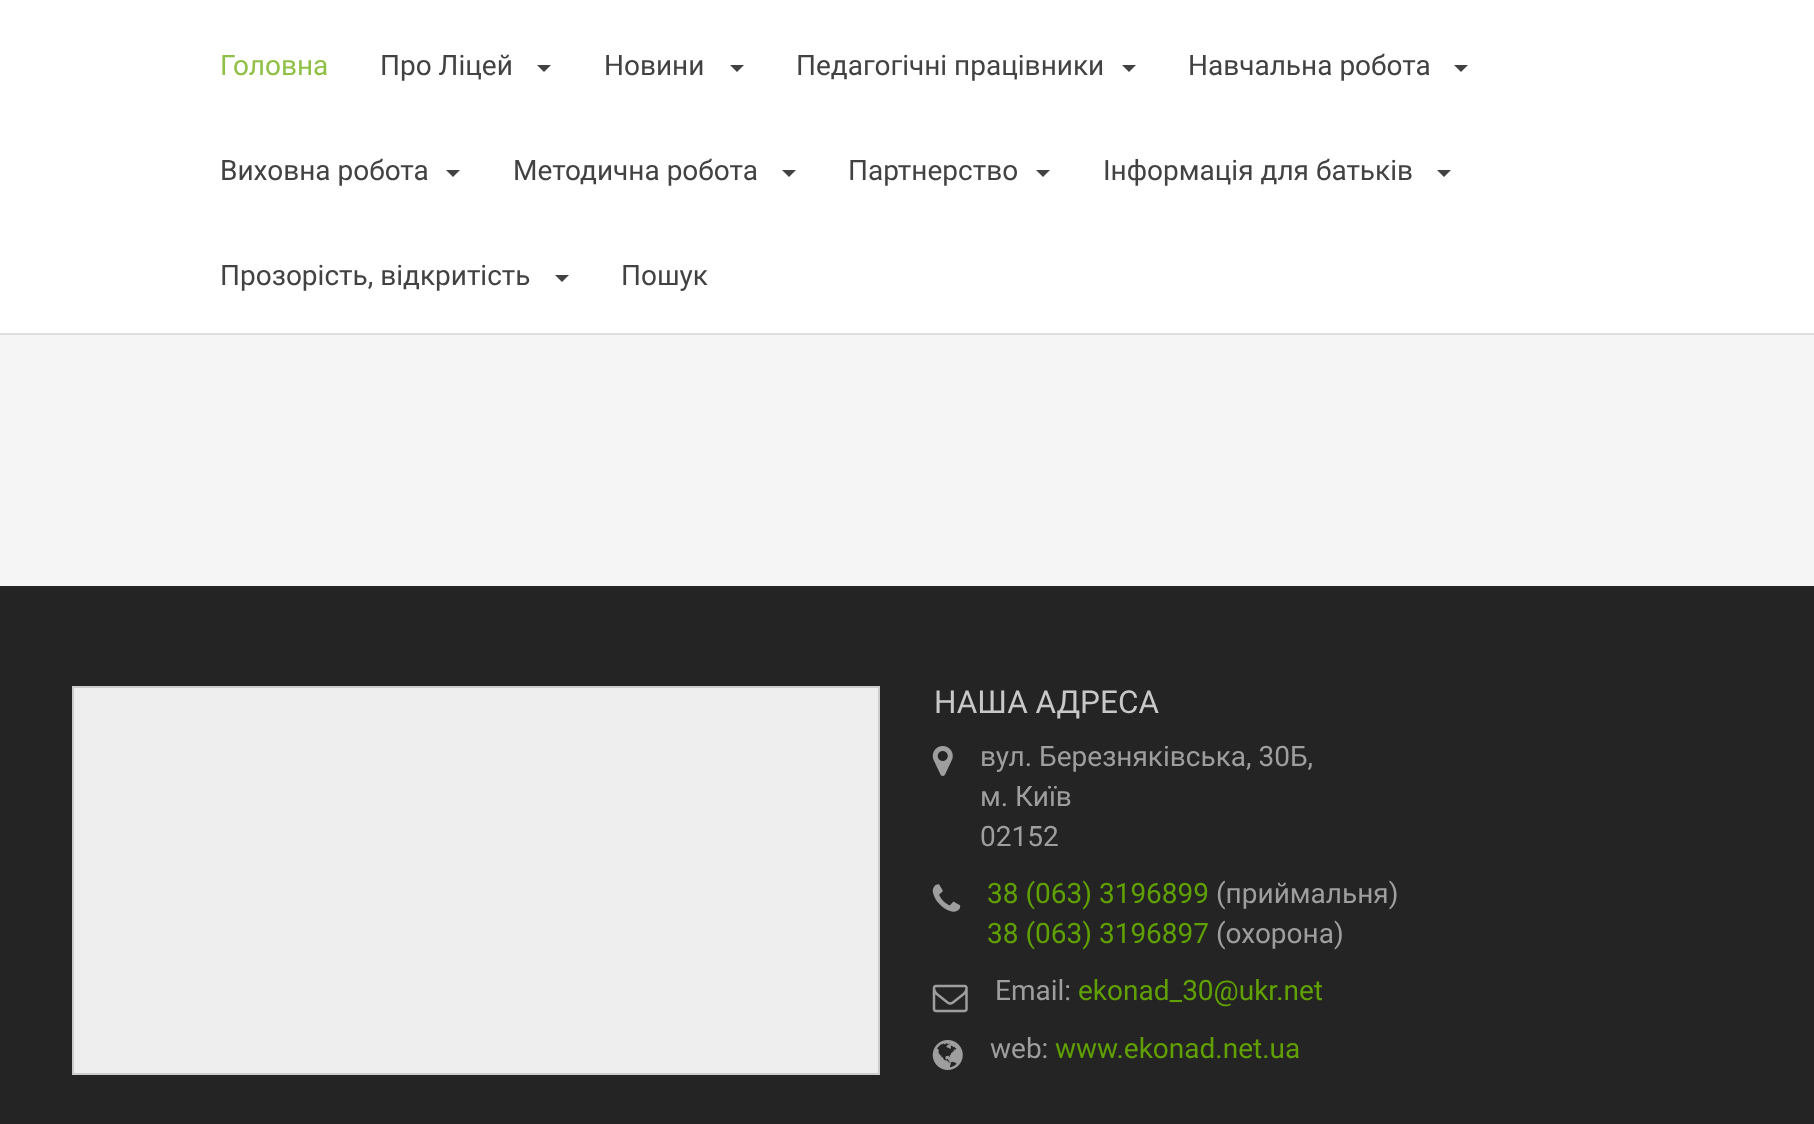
<!DOCTYPE html>
<meta charset="utf-8">
<style>body { margin: 0 } canvas { display: block }</style>
<canvas id="canvas" width="1814" height="1124"></canvas>
<script type="module">
  const canvas = document.getElementById("canvas");
  const g = canvas.getContext("2d");
  g.miterLimit = 4;
  g.fontKerning = "normal";
  function drawText(s, x, y, [font, color]) {
    g.font = font;
    g.fillStyle = color;
    g.fillText(s, x, y);
  }
  function fillBox(x, y, w, h, color) {
    g.fillStyle = color;
    g.fillRect(x, y, w, h);
  }
  async function drawPicture(src, x, y, w, h) {
    const img = new Image();
    img.src = src;
    await img.decode();
    g.drawImage(img, x, y, w, h);
  }

  const s1 = ["28px Roboto", "#90C046"];
  const s2 = ["28px Roboto", "#424242"];
  const s3 = ["31.5px Roboto", "#C8C8C8"];
  const s4 = ["28px Roboto", "#9E9E9E"];
  const s5 = ["28px Roboto", "#61A003"];

  fillBox(0, 0, 1814, 1124, "#F5F5F5");
  fillBox(0, 0, 1814, 333, "#FFFFFF");
  fillBox(0, 333, 1814, 2, "#DDDDDD");
  drawText("Головна", 220, 75, s1);
  drawText("Про Ліцей", 380, 75, s2);
  g.beginPath();
  g.moveTo(537, 65);
  g.lineTo(551, 65);
  g.lineTo(544, 72);
  g.closePath();
  g.fill();
  drawText("Новини", 604, 75, s2);
  g.beginPath();
  g.moveTo(730, 65);
  g.lineTo(744, 65);
  g.lineTo(737, 72);
  g.closePath();
  g.fill();
  drawText("Педагогічні працівники", 796, 75, s2);
  g.beginPath();
  g.moveTo(1122, 65);
  g.lineTo(1136, 65);
  g.lineTo(1129, 72);
  g.closePath();
  g.fill();
  drawText("Навчальна робота", 1188, 75, s2);
  g.beginPath();
  g.moveTo(1454, 65);
  g.lineTo(1468, 65);
  g.lineTo(1461, 72);
  g.closePath();
  g.fill();
  drawText("Виховна робота", 220, 180, s2);
  g.beginPath();
  g.moveTo(446, 170);
  g.lineTo(460, 170);
  g.lineTo(453, 177);
  g.closePath();
  g.fill();
  drawText("Методична робота", 513, 180, s2);
  g.beginPath();
  g.moveTo(782, 170);
  g.lineTo(796, 170);
  g.lineTo(789, 177);
  g.closePath();
  g.fill();
  drawText("Партнерство", 848, 180, s2);
  g.beginPath();
  g.moveTo(1036, 170);
  g.lineTo(1050, 170);
  g.lineTo(1043, 177);
  g.closePath();
  g.fill();
  drawText("Інформація для батьків", 1103, 180, s2);
  g.beginPath();
  g.moveTo(1437, 170);
  g.lineTo(1451, 170);
  g.lineTo(1444, 177);
  g.closePath();
  g.fill();
  drawText("Прозорість, відкритість", 220, 285, s2);
  g.beginPath();
  g.moveTo(555, 275);
  g.lineTo(569, 275);
  g.lineTo(562, 282);
  g.closePath();
  g.fill();
  drawText("Пошук", 621, 285, s2);
  fillBox(0, 586, 1814, 538, "#242424");
  g.fillStyle = "#EEEEEE";
  g.beginPath();
  g.rect(73, 687, 806, 387);
  g.fill();
  g.strokeStyle = "#CCCCCC";
  g.lineWidth = 2;
  g.stroke();
  drawText("НАША АДРЕСА", 934, 713, s3);
  await drawPicture("pic1.png", 932, 746, 21, 30);
  drawText("вул. Березняківська, 30Б,", 980, 766, s4);
  drawText("м. Київ", 980, 806, s4);
  drawText("02152", 980, 846, s4);
  await drawPicture("pic2.png", 932, 884, 29, 28);
  drawText("38 (063) 3196899", 987, 903, s5);
  drawText("(приймальня)", 1216, 903, s4);
  drawText("38 (063) 3196897", 987, 943, s5);
  drawText("(охорона)", 1216, 943, s4);
  await drawPicture("pic3.png", 932, 984, 36, 29);
  drawText("Email:", 995, 1000, s4);
  drawText("ekonad_30@ukr.net", 1078, 1000, s5);
  await drawPicture("pic4.png", 932, 1040, 31, 30);
  drawText("web:", 990, 1058, s4);
  drawText("www.ekonad.net.ua", 1055, 1058, s5);
</script>
